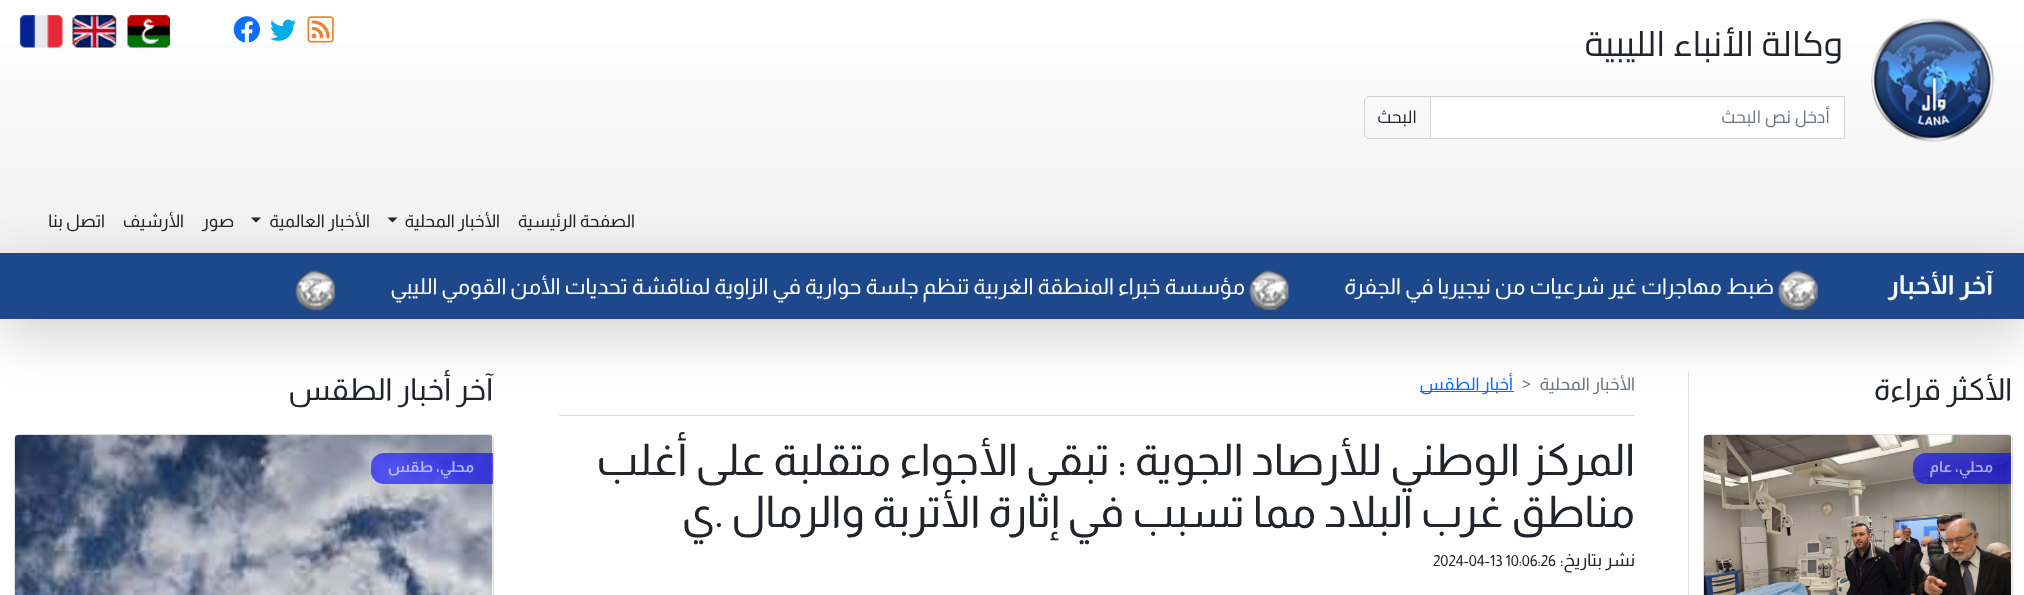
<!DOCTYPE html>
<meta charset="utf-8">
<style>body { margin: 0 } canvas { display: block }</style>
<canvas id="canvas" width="2024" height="595"></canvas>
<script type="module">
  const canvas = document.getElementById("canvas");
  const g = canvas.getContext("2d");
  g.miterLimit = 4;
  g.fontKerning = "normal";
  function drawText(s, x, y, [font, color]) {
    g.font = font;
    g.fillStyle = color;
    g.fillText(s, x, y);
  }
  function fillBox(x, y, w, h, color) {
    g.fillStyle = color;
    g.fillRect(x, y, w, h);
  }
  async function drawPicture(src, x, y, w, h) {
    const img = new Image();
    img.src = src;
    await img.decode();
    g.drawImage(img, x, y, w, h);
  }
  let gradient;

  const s1 = ["35px Cairo", "#212529"];
  const s2 = ["17.5px Cairo", "#6C757D"];
  const s3 = ["17.5px Cairo", "#212529"];
  const s4 = ["17.5px Almarai", "#212529"];
  const s5 = ["bold 26.25px Almarai", "#F8F9FA"];
  const s6 = ["21.9px Almarai", "#FFFFFF"];
  const s7 = ["30.5px Almarai", "#212529"];
  const s8 = ["bold 15px Almarai", "#ACABE6"];
  const s9 = ["17.5px Almarai", "#6C757D"];
  const s10 = ["17.5px Almarai", "#0D6EFD"];
  const s11 = ["43.75px Almarai", "#212529"];
  const s12 = ["15.25px Almarai", "#212529"];
  const s13 = ["bold 15px Almarai", "#B4B5F4"];

  fillBox(0, 0, 2024, 595, "#FFFFFF");
  gradient = g.createLinearGradient(1013, 0, 1013, 253);
  gradient.addColorStop(0, "#FFFFFF");
  gradient.addColorStop(1, "#F0F0F0");
  g.fillStyle = gradient;
  g.fillRect(0, 42, 2024, 211);
  await drawPicture("pic1.png", 1871, 18, 124, 124);
  g.direction = "rtl";
  drawText("وكالة الأنباء الليبية", 1843, 56, s1);
  fillBox(1431, 98, 413, 40, "#FFFFFF");
  g.strokeStyle = "#CED4DA";
  g.strokeRect(1430.5, 96.5, 414, 42);
  drawText("أدخل نص البحث", 1830, 123, s2);
  g.beginPath();
  g.roundRect(1364.5, 96.5, 66, 42, [4.5, 0, 0, 4.5]);
  g.stroke();
  drawText("البحث", 1417, 123, s3);
  await drawPicture("pic2.png", 307, 16, 27, 27);
  await drawPicture("pic3.png", 270, 19, 27, 22);
  await drawPicture("pic4.png", 233, 16, 27, 27);
  await drawPicture("pic5.png", 127, 14, 43, 34);
  await drawPicture("pic6.png", 72, 14, 45, 34);
  await drawPicture("pic7.png", 19, 14, 44, 34);
  g.fillStyle = "rgba(0, 0, 0, 0.18)";
  g.filter = "blur(26px)";
  g.beginPath();
  g.rect(0, 270, 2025, 66);
  g.fill();
  g.filter = "none";
  drawText("الصفحة الرئيسية", 635, 227, s4);
  drawText("الأخبار المحلية", 500, 227, s4);
  g.beginPath();
  g.moveTo(387.5, 217.5);
  g.lineTo(397.5, 217.5);
  g.lineTo(392.5, 222.5);
  g.closePath();
  g.fill();
  drawText("الأخبار العالمية", 370, 227, s4);
  g.beginPath();
  g.moveTo(251, 217.5);
  g.lineTo(261, 217.5);
  g.lineTo(256, 222.5);
  g.closePath();
  g.fill();
  drawText("صور", 234, 227, s4);
  drawText("الأرشيف", 184, 227, s4);
  drawText("اتصل بنا", 105, 227, s4);
  fillBox(0, 253, 2024, 66, "#1D488C");
  drawText("آخر الأخبار", 1993, 294, s5);
  await drawPicture("pic8.png", 1777, 270, 41, 40);
  drawText("ضبط مهاجرات غير شرعيات من نيجيريا في الجفرة", 1774, 294, s6);
  await drawPicture("pic9.png", 1249, 270, 40, 40);
  drawText("مؤسسة خبراء المنطقة الغربية تنظم جلسة حوارية في الزاوية لمناقشة تحديات الأمن القومي الليبي", 1245, 294, s6);
  await drawPicture("pic10.png", 295, 270, 40, 40);
  fillBox(1688, 371, 1, 224, "#DEE2E6");
  drawText("الأكثر قراءة", 2012, 400, s7);
  g.beginPath();
  g.roundRect(1703.5, 434.5, 309, 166, 4.5);
  g.strokeStyle = "#DFDFDF";
  g.stroke();
  await drawPicture("pic11.png", 1703, 435, 309, 160);
  g.fillStyle = "rgba(0, 0, 255, 0.6)";
  g.beginPath();
  g.roundRect(1913, 453, 98, 31, [13, 0, 0, 13]);
  g.fill();
  drawText("محلي، عام", 1993, 472, s8);
  drawText("الأخبار المحلية", 1635, 390, s9);
  g.direction = "ltr";
  drawText(">", 1522, 390, s9);
  fillBox(1420, 391, 94, 1, "#0D6EFD");
  g.direction = "rtl";
  drawText("أخبار الطقس", 1513, 390, s10);
  fillBox(559, 415, 1076, 1, "#DADDDF");
  drawText("المركز الوطني للأرصاد الجوية : تبقى الأجواء متقلبة على أغلب", 1635, 475, s11);
  drawText("مناطق غرب البلاد مما تسبب في إثارة الأتربة والرمال .ي", 1635, 527, s11);
  drawText("نشر بتاريخ:", 1635, 566, s4);
  g.direction = "ltr";
  drawText("2024-04-13 10:06:26", 1433, 566, s12);
  g.direction = "rtl";
  drawText("آخر", 493, 400, s7);
  drawText("أخبار الطقس", 451, 400, s7);
  g.beginPath();
  g.roundRect(14.5, 434.5, 479, 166, 4.5);
  g.stroke();
  await drawPicture("pic12.png", 15, 435, 478, 160);
  g.fillStyle = "rgba(0, 0, 255, 0.6)";
  g.beginPath();
  g.roundRect(371, 453, 122, 31, [13, 0, 0, 13]);
  g.fill();
  drawText("محلي، طقس", 474, 472, s13);
</script>
